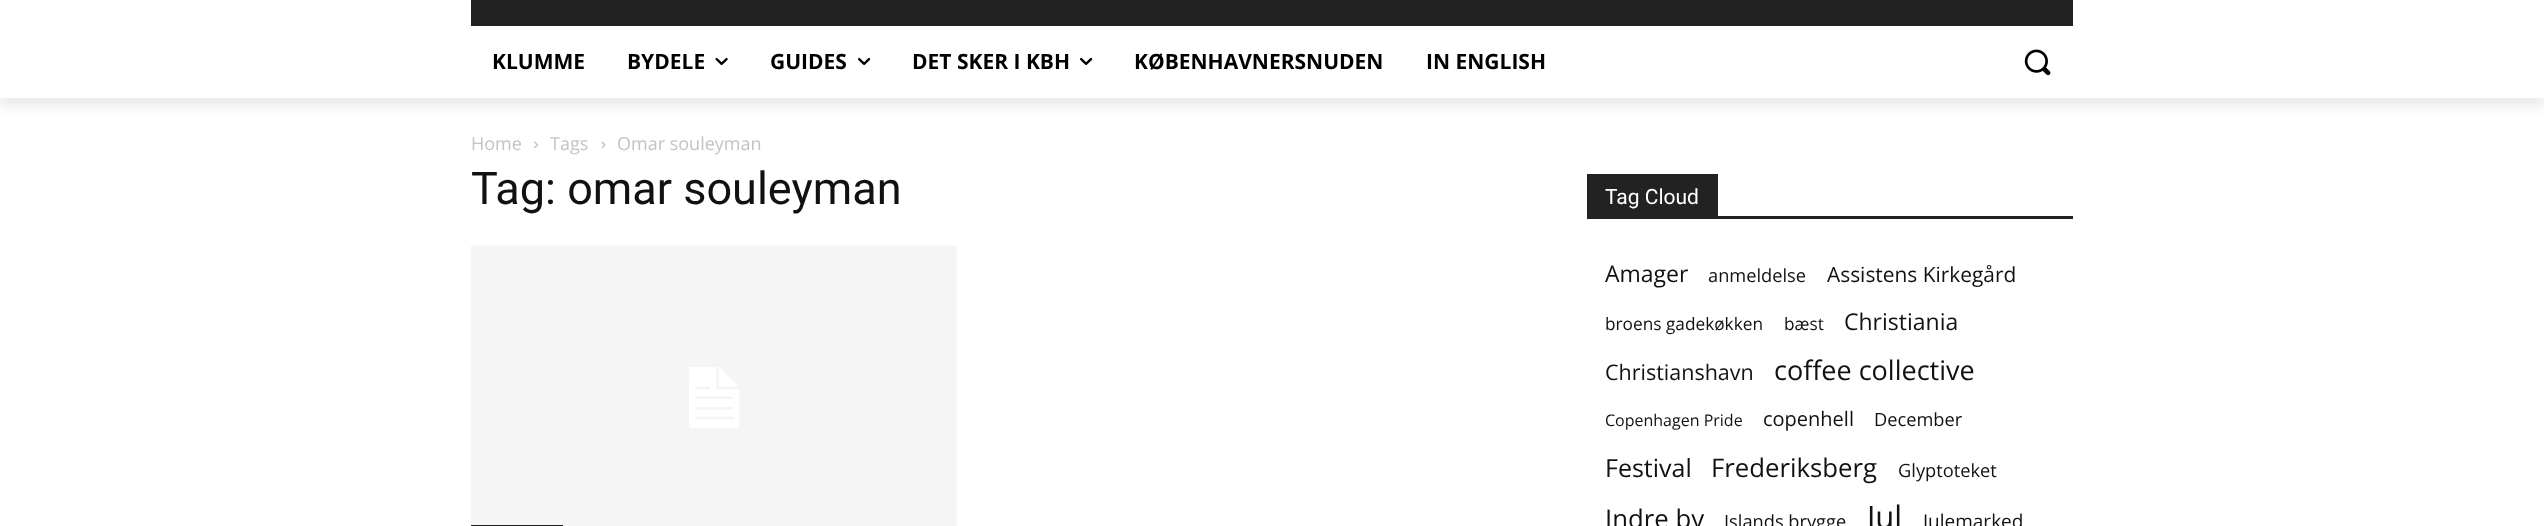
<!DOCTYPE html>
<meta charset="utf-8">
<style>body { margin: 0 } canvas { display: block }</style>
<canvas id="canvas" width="2544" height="526"></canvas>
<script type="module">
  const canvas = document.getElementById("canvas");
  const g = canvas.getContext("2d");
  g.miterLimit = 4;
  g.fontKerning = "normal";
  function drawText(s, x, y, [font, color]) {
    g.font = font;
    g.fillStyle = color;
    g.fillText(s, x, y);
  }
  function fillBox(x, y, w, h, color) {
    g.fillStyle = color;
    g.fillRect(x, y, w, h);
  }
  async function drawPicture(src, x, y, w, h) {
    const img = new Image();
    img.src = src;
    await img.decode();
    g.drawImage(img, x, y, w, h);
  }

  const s1 = ["bold 21px Open Sans", "#000000"];
  const s2 = ["18px Open Sans", "#C3C3C3"];
  const s3 = ["45px Roboto", "#111111"];
  const s4 = ["21px Roboto", "#FFFFFF"];
  const s5 = ["23px Open Sans", "#111111"];
  const s6 = ["18.25px Open Sans", "#111111"];
  const s7 = ["20.9px Open Sans", "#111111"];
  const s8 = ["17.25px Open Sans", "#111111"];
  const s9 = ["21.5px Open Sans", "#111111"];
  const s10 = ["27px Open Sans", "#111111"];
  const s11 = ["16px Open Sans", "#111111"];
  const s12 = ["20px Open Sans", "#111111"];
  const s13 = ["25px Open Sans", "#111111"];
  const s14 = ["25.75px Open Sans", "#111111"];
  const s15 = ["31px Open Sans", "#111111"];
  const s16 = ["19px Open Sans", "#111111"];

  fillBox(0, 0, 2544, 526, "#FFFFFF");
  fillBox(471, 0, 1602, 26, "#212121");
  g.save();
  g.beginPath();
  g.moveTo(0, 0);
  g.lineTo(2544, 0);
  g.lineTo(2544, 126);
  g.lineTo(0, 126);
  g.closePath();
  g.moveTo(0, -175);
  g.lineTo(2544, -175);
  g.lineTo(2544, 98);
  g.lineTo(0, 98);
  g.closePath();
  g.clip("evenodd");
  g.fillStyle = "rgba(0, 0, 0, 0.08)";
  g.filter = "blur(6px)";
  g.beginPath();
  g.rect(0, -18, 2544, 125);
  g.fill();
  g.filter = "none";
  g.restore();
  drawText("KLUMME", 492, 69, s1);
  drawText("BYDELE", 627, 69, s1);
  await drawPicture("pic1.png", 715, 57, 13, 8);
  drawText("GUIDES", 770, 69, s1);
  await drawPicture("pic2.png", 858, 57, 13, 8);
  drawText("DET SKER I KBH", 912, 69, s1);
  await drawPicture("pic2.png", 1080, 57, 13, 8);
  drawText("KØBENHAVNERSNUDEN", 1134, 69, s1);
  drawText("IN ENGLISH", 1426, 69, s1);
  await drawPicture("pic3.png", 2024, 49, 27, 27);
  drawText("Home", 471, 150, s2);
  await drawPicture("pic4.png", 534, 141, 4, 8);
  drawText("Tags", 550, 150, s2);
  await drawPicture("pic5.png", 601, 141, 5, 8);
  drawText("Omar souleyman", 617, 150, s2);
  drawText("Tag: omar souleyman", 471, 204, s3);
  await drawPicture("pic6.png", 471, 245, 486, 281);
  fillBox(471, 525, 92, 1, "#222222");
  fillBox(1587, 216, 486, 3, "#222222");
  fillBox(1587, 174, 131, 42, "#222222");
  drawText("Tag Cloud", 1605, 204, s4);
  drawText("Amager", 1605, 282, s5);
  drawText("anmeldelse", 1708, 282, s6);
  drawText("Assistens Kirkegård", 1827, 282, s7);
  drawText("broens gadekøkken", 1605, 330, s8);
  drawText("bæst", 1784, 330, s8);
  drawText("Christiania", 1844, 330, s5);
  drawText("Christianshavn", 1605, 380, s9);
  drawText("coffee collective", 1774, 380, s10);
  drawText("Copenhagen Pride", 1605, 426, s11);
  drawText("copenhell", 1763, 426, s12);
  drawText("December", 1874, 426, s6);
  drawText("Festival", 1605, 477, s13);
  drawText("Frederiksberg", 1711, 477, s14);
  drawText("Glyptoteket", 1898, 477, s6);
  drawText("Indre by", 1605, 528, s14);
  drawText("Islands brygge", 1724, 528, s6);
  drawText("Jul", 1867, 528, s15);
  drawText("Julemarked", 1923, 528, s16);
</script>
